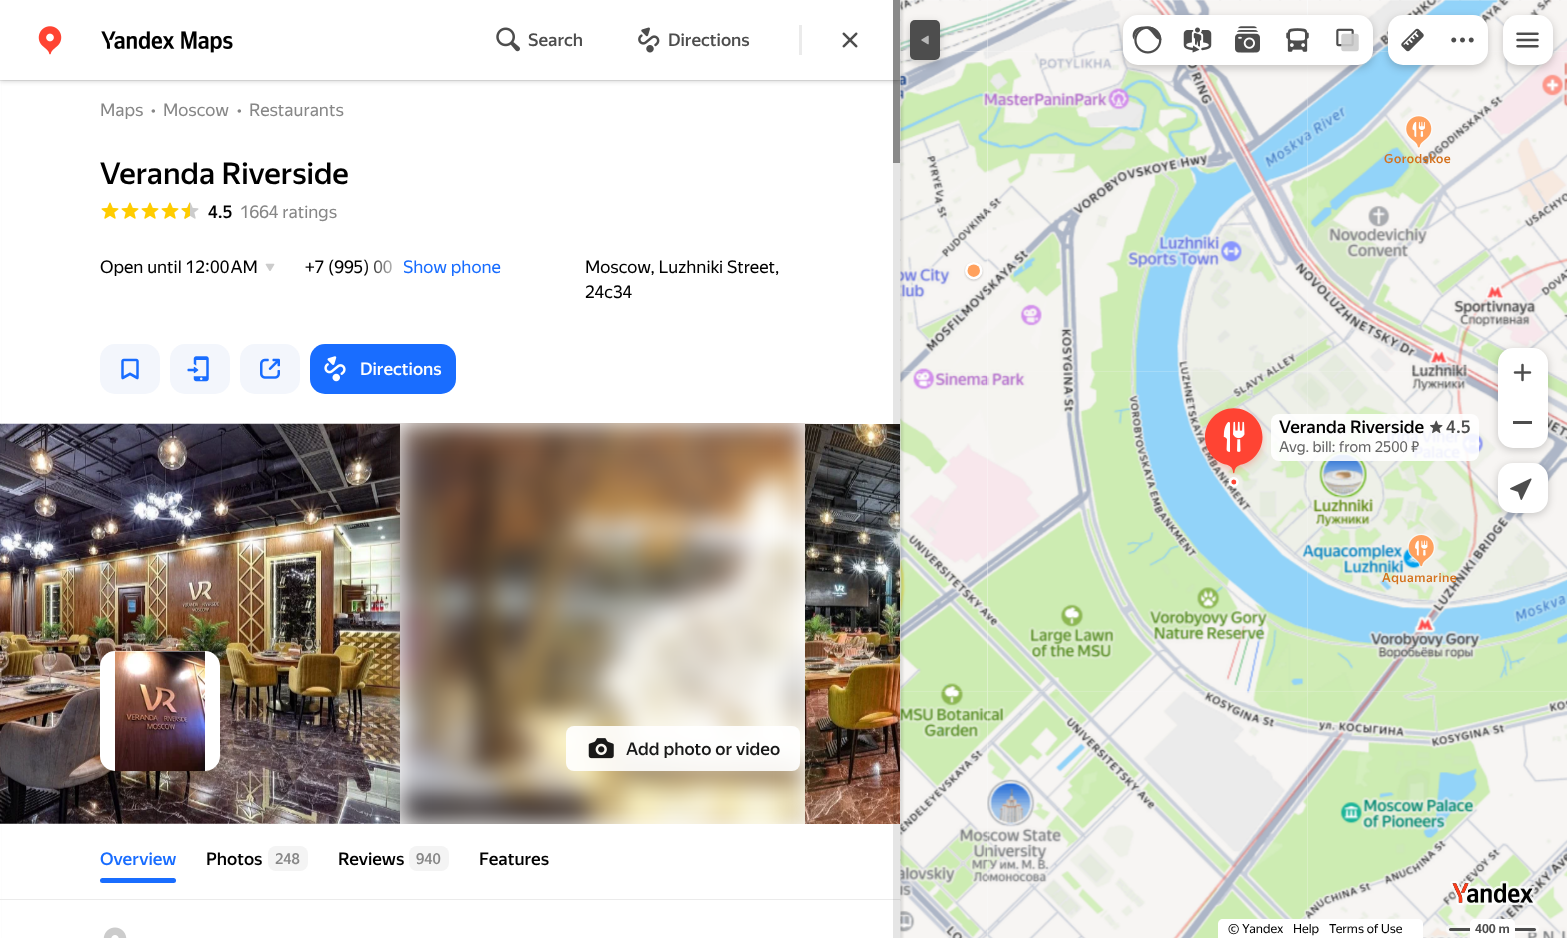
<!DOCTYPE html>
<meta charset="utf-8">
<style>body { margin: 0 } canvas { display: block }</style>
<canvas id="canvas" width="1567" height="938"></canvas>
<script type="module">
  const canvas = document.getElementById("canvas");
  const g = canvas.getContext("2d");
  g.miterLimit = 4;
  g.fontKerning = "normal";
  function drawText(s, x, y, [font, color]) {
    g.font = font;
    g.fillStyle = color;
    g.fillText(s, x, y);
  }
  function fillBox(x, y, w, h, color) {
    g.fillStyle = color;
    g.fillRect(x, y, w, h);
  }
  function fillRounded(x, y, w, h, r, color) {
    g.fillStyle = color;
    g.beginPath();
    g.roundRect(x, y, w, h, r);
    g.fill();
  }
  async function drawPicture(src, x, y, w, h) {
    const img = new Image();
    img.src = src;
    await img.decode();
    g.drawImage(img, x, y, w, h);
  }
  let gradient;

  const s1 = ["500 17.5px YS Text", "#4D4D4D"];
  const s2 = ["17.5px YS Text", "#878787"];
  const s3 = ["500 30px YS Text", "#000000"];
  const s4 = ["500 17.5px YS Text", "#000000"];
  const s5 = ["17.5px YS Text", "#000000"];
  const s6 = ["17.5px YS Text", "#196DFF"];
  const s7 = ["500 17.5px YS Text", "#FFFFFF"];
  const s8 = ["500 17.5px YS Text", "#191919"];
  const s9 = ["500 17.5px YS Text", "#196DFF"];
  const s10 = ["500 15px YS Text", "#878787"];
  const s11 = ["12.5px YS Text", "#000000"];
  const s12 = ["bold 12.5px YS Text", "#4D4D4D"];
  const s13 = ["500 12.5px YS Text", "#D4711C"];
  const s14 = ["15px YS Text", "#666666"];

  fillBox(0, 0, 1567, 938, "#FFFFFF");
  await drawPicture("pic1.png", 900, 0, 667, 938);
  await drawPicture("pic32.png", 900, 0, 88, 52);
  await drawPicture("pic33.png", 987, 0, 320, 52);
  await drawPicture("pic35.png", 900, 51, 88, 321);
  await drawPicture("pic36.png", 987, 51, 321, 321);
  await drawPicture("pic38.png", 900, 371, 88, 321);
  await drawPicture("pic34.png", 1308, 0, 259, 52);
  await drawPicture("pic37.png", 1307, 51, 260, 321);
  await drawPicture("pic39.png", 987, 371, 321, 321);
  await drawPicture("pic41.png", 900, 691, 88, 247);
  g.fillStyle = "rgba(0, 0, 0, 0.1)";
  g.filter = "blur(1px)";
  g.beginPath();
  g.rect(3, 0, 900, 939);
  g.fill();
  g.filter = "none";
  fillBox(2, 81, 898, 857, "#FFFFFF");
  fillBox(0, 80, 900, 1, "#EBEBEB");
  g.save();
  g.beginPath();
  g.rect(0, 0, 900, 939);
  g.clip();
  g.fillStyle = "rgba(0, 0, 0, 0.2)";
  g.filter = "blur(2.5px)";
  g.beginPath();
  g.rect(0, 76, 900, 5);
  g.fill();
  g.filter = "none";
  g.restore();
  g.fillStyle = "rgba(0, 0, 0, 0.2)";
  g.filter = "blur(4px)";
  g.beginPath();
  g.roundRect(910, 23, 30, 40, 5);
  g.fill();
  g.filter = "none";
  fillBox(0, 0, 900, 80, "#FFFFFF");
  await drawPicture("pic2.png", 38, 26, 24, 29);
  await drawPicture("pic3.png", 101, 31, 132, 22);
  await drawPicture("pic4.png", 496, 27, 24, 25);
  drawText("Search", 528, 46, s1);
  await drawPicture("pic5.png", 638, 27, 22, 26);
  drawText("Directions", 668, 46, s1);
  fillBox(799, 25, 3, 30, "#EBEBEB");
  await drawPicture("pic6.png", 842, 32, 16, 16);
  drawText("Maps", 100, 116, s2);
  drawText("•", 151, 116, s2);
  drawText("Moscow", 163, 116, s2);
  drawText("•", 237, 116, s2);
  drawText("Restaurants", 249, 116, s2);
  drawText("Veranda Riverside", 100, 184, s3);
  await drawPicture("pic7.png", 101, 202, 18, 17);
  await drawPicture("pic7.png", 121, 202, 18, 17);
  await drawPicture("pic7.png", 141, 202, 18, 17);
  await drawPicture("pic7.png", 161, 202, 18, 17);
  await drawPicture("pic8.png", 181, 202, 18, 17);
  drawText("4.5", 208, 218, s4);
  drawText("1664 ratings", 240, 218, s2);
  drawText("Open until 12:00 AM", 100, 273, s5);
  await drawPicture("pic9.png", 265, 263, 10, 8);
  drawText("+7 (995) 00", 305, 273, s5);
  drawText("Show phone", 403, 273, s6);
  gradient = g.createLinearGradient(364, 266, 404, 266);
  gradient.addColorStop(0, "rgba(255, 255, 255, 0)");
  gradient.addColorStop(1, "#FFFFFF");
  g.fillStyle = gradient;
  g.fillRect(365, 260, 39, 14);
  drawText("Moscow, Luzhniki Street,", 585, 273, s5);
  drawText("24с34", 585, 298, s5);
  fillRounded(100, 344, 60, 50, 15, "#F3F6FC");
  await drawPicture("pic10.png", 121, 358, 18, 22);
  fillRounded(170, 344, 60, 50, 15, "#F3F6FC");
  await drawPicture("pic11.png", 187, 356, 22, 26);
  fillRounded(240, 344, 60, 50, 15, "#F3F6FC");
  await drawPicture("pic12.png", 260, 358, 20, 21);
  fillRounded(310, 344, 146, 50, 15, "#196DFF");
  await drawPicture("pic13.png", 324, 356, 22, 26);
  drawText("Directions", 360, 375, s7);
  await drawPicture("pic14.png", 0, 423, 401, 401);
  await drawPicture("pic15.png", 401, 423, 403, 401);
  await drawPicture("pic16.png", 804, 423, 96, 401);
  fillRounded(100, 651, 120, 120, 15, "#FFFFFF");
  await drawPicture("pic17.png", 115, 651, 90, 121);
  fillRounded(566, 726, 234, 45, 8, "rgba(255, 255, 255, 0.9)");
  await drawPicture("pic18.png", 588, 738, 26, 21);
  drawText("Add photo or video", 626, 755, s8);
  drawText("Overview", 100, 865, s9);
  drawText("Photos", 206, 865, s4);
  fillRounded(268, 846, 40, 25, 8, "#F4F4F4");
  drawText("248", 275, 864, s10);
  drawText("Reviews", 338, 865, s4);
  fillRounded(409, 846, 40, 25, 8, "#F4F4F4");
  drawText("940", 416, 864, s10);
  drawText("Features", 479, 865, s4);
  fillRounded(100, 878, 76, 5, 2.5, "#196DFF");
  fillBox(0, 899, 900, 1, "#EBEBEB");
  await drawPicture("pic19.png", 103, 927, 24, 11);
  fillBox(893, 0, 7, 938, "rgba(0, 0, 0, 0.1)");
  fillBox(893, 0, 7, 163, "rgba(0, 0, 0, 0.4)");
  fillRounded(910, 20, 30, 40, 5, "#4D4D4D");
  await drawPicture("pic20.png", 921, 35, 8, 10);
  g.fillStyle = "rgba(0, 0, 0, 0.2)";
  g.filter = "blur(4px)";
  g.beginPath();
  g.roundRect(1123, 18, 250, 50, 15);
  g.fill();
  g.filter = "none";
  g.fillStyle = "#FFFFFF";
  g.beginPath();
  g.roundRect(1123, 15, 50, 50, [15, 0, 0, 15]);
  g.fill();
  await drawPicture("pic21.png", 1132, 26, 30, 28);
  fillBox(1173, 15, 150, 50, "#FFFFFF");
  await drawPicture("pic22.png", 1183, 27, 29, 26);
  g.beginPath();
  g.roundRect(1323, 15, 50, 50, [0, 15, 15, 0]);
  g.fill();
  await drawPicture("pic23.png", 1336, 28, 23, 24);
  await drawPicture("pic24.png", 1235, 26, 25, 27);
  await drawPicture("pic25.png", 1286, 28, 23, 24);
  g.fillStyle = "rgba(0, 0, 0, 0.2)";
  g.filter = "blur(4px)";
  g.beginPath();
  g.roundRect(1388, 18, 100, 50, 15);
  g.fill();
  g.filter = "none";
  g.fillStyle = "#FFFFFF";
  g.beginPath();
  g.roundRect(1388, 15, 50, 50, [15, 0, 0, 15]);
  g.fill();
  await drawPicture("pic26.png", 1401, 28, 23, 24);
  g.beginPath();
  g.roundRect(1438, 15, 50, 50, [0, 15, 15, 0]);
  g.fill();
  await drawPicture("pic27.png", 1451, 37, 23, 6);
  g.fillStyle = "rgba(0, 0, 0, 0.2)";
  g.filter = "blur(4px)";
  g.beginPath();
  g.roundRect(1503, 18, 50, 50, 15);
  g.fill();
  g.filter = "none";
  fillRounded(1503, 15, 50, 50, 15, "#FFFFFF");
  await drawPicture("pic28.png", 1516, 32, 23, 16);
  await drawPicture("pic40.png", 1307, 371, 260, 321);
  g.fillStyle = "rgba(0, 0, 0, 0.2)";
  g.filter = "blur(4px)";
  g.beginPath();
  g.roundRect(1498, 350, 50, 100, 15);
  g.fill();
  g.filter = "none";
  g.fillStyle = "#FFFFFF";
  g.beginPath();
  g.roundRect(1498, 348, 50, 50, [15, 15, 0, 0]);
  g.fill();
  await drawPicture("pic29.png", 1513, 363, 19, 19);
  g.beginPath();
  g.roundRect(1498, 398, 50, 50, [0, 0, 15, 15]);
  g.fill();
  fillBox(1513, 421, 19, 3, "#4D4D4D");
  g.fillStyle = "rgba(0, 0, 0, 0.2)";
  g.filter = "blur(4px)";
  g.beginPath();
  g.roundRect(1498, 465, 50, 50, 15);
  g.fill();
  g.filter = "none";
  fillRounded(1498, 463, 50, 50, 15, "#FFFFFF");
  await drawPicture("pic30.png", 1510, 478, 22, 22);
  await drawPicture("pic42.png", 987, 691, 321, 247);
  await drawPicture("pic43.png", 1307, 691, 260, 247);
  await drawPicture("pic31.png", 1450, 880, 86, 26);
  g.beginPath();
  g.moveTo(1223, 919);
  g.lineTo(1418, 919);
  g.bezierCurveTo(1421, 919, 1423, 921, 1423, 924);
  g.lineTo(1423, 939);
  g.lineTo(1218, 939);
  g.lineTo(1218, 924);
  g.bezierCurveTo(1218, 921, 1220, 919, 1223, 919);
  g.closePath();
  g.fill();
  drawText("© Yandex", 1228, 933, s11);
  drawText("Help", 1293, 933, s11);
  drawText("Terms of Use", 1329, 933, s11);
  fillRounded(1446, 925, 93, 8, 4, "rgba(255, 255, 255, 0.6)");
  fillRounded(1449, 928, 87, 3, 1.5, "#4D4D4D");
  g.fillStyle = "#FFFFFF";
  g.beginPath();
  g.moveTo(1475, 919);
  g.lineTo(1510, 919);
  g.bezierCurveTo(1513, 919, 1515, 921, 1515, 924);
  g.lineTo(1515, 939);
  g.lineTo(1470, 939);
  g.lineTo(1470, 924);
  g.bezierCurveTo(1470, 921, 1472, 919, 1475, 919);
  g.closePath();
  g.fill();
  drawText("400 m", 1475, 933, s12);
  await drawPicture("pic44.png", 1405, 115, 28, 34);
  await drawPicture("pic45.png", 1412, 121, 13, 16);
  g.letterSpacing = "0.5px";
  drawText("Gorodskoe", 1384, 163, s13);
  await drawPicture("pic46.png", 964, 262, 20, 20);
  await drawPicture("pic47.png", 1200, 407, 67, 80);
  await drawPicture("pic48.png", 1223, 421, 22, 31);
  fillRounded(1271, 414, 208, 47, 8, "rgba(255, 255, 255, 0.9)");
  g.letterSpacing = "0px";
  drawText("Veranda Riverside", 1279, 433, s4);
  await drawPicture("pic49.png", 1430, 420, 13, 14);
  drawText("4.5", 1446, 433, s1);
  drawText("Avg. bill: from 2500 ₽", 1279, 452, s14);
  await drawPicture("pic50.png", 1407, 533, 28, 35);
  await drawPicture("pic51.png", 1415, 540, 13, 16);
  g.letterSpacing = "0.5px";
  drawText("Aquamarine", 1382, 582, s13);
</script>
